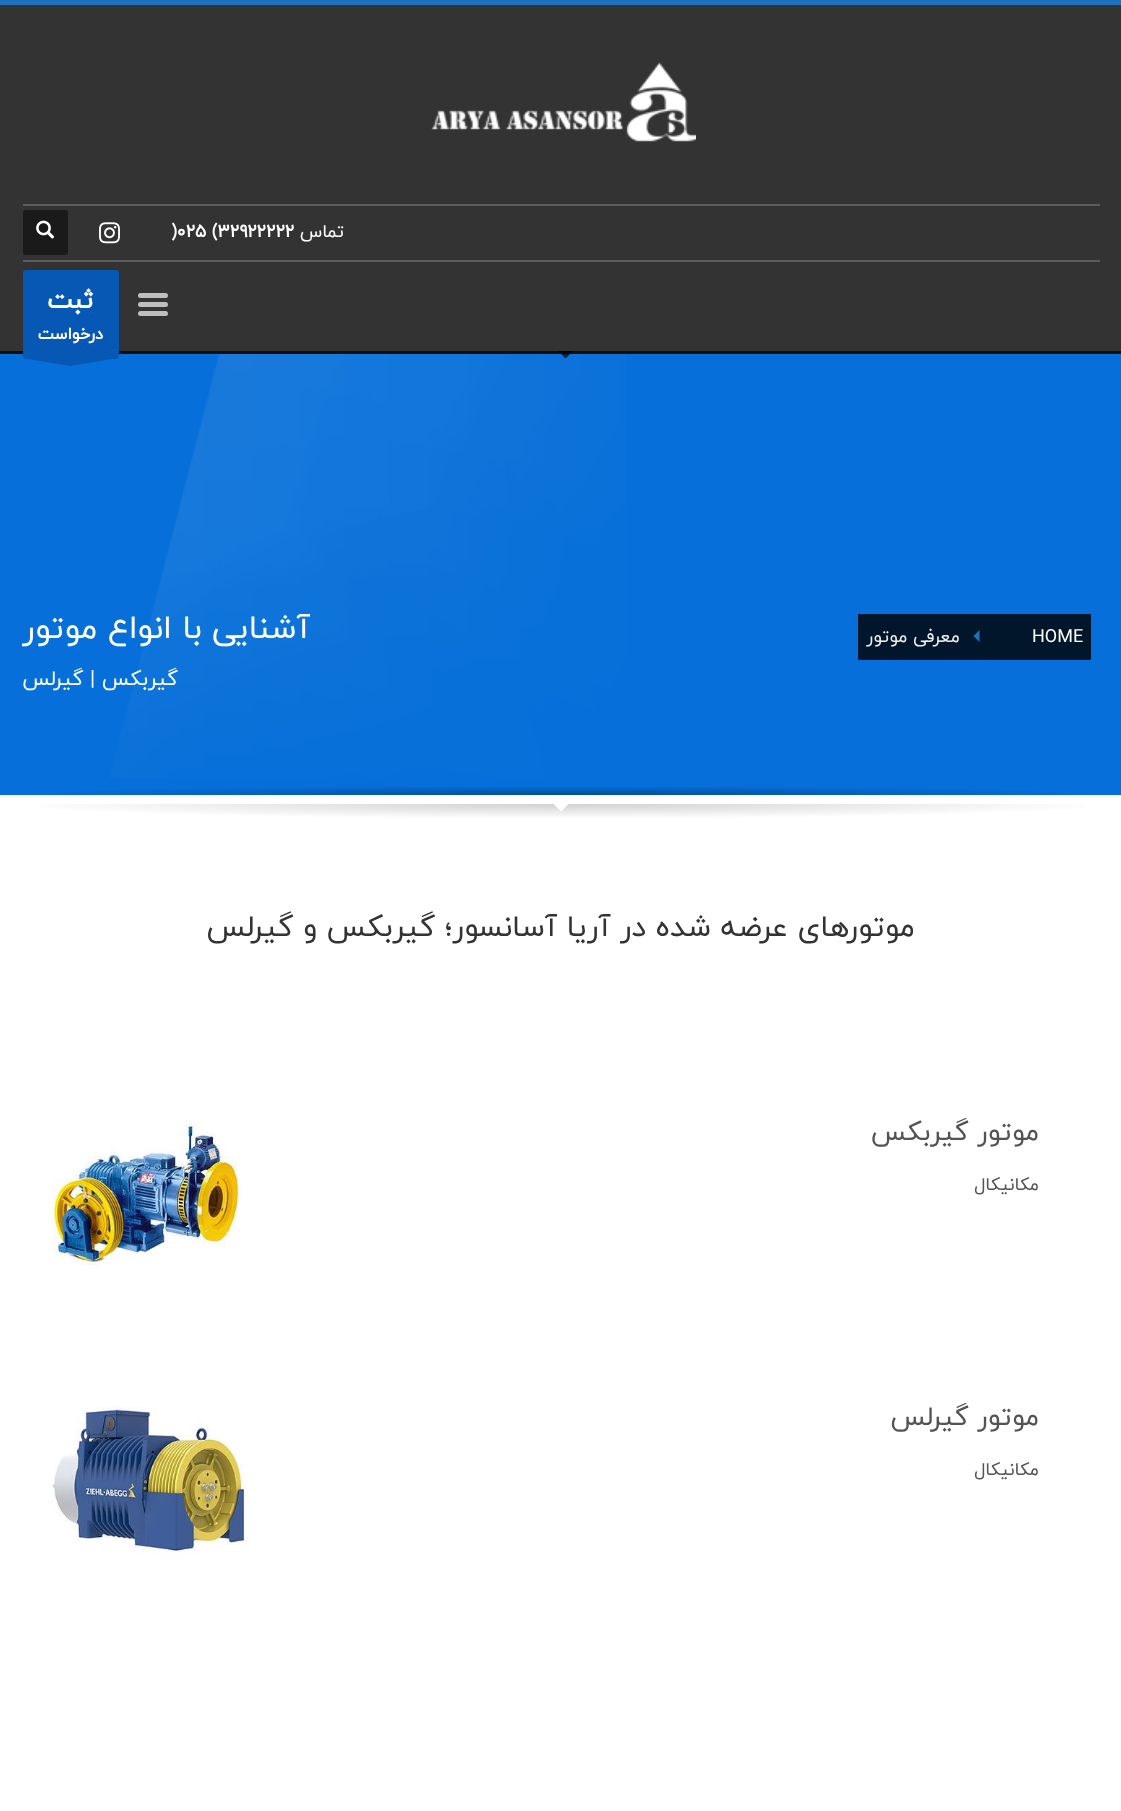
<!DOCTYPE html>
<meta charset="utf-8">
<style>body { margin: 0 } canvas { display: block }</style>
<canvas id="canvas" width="1121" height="1811"></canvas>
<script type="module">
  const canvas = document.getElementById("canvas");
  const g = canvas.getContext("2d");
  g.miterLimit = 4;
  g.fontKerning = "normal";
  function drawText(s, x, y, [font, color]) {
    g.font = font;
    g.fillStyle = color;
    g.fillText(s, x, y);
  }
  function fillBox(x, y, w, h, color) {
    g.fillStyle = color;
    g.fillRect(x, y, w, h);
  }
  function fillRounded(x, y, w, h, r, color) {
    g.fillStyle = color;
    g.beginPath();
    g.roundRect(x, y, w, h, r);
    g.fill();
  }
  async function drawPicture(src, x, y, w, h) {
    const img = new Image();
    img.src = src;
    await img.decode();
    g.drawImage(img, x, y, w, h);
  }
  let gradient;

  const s1 = ["18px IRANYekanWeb", "#FFFFFF"];
  const s2 = ["bold 18px IRANYekanWeb", "#FFFFFF"];
  const s3 = ["bold 26px IRANYekanWeb", "#FFFFFF"];
  const s4 = ["bold 16.5px IRANYekanWeb", "#FFFFFF"];
  const s5 = ["18px IRANYekanWeb", "#EEEEEE"];
  const s6 = ["33px IRANYekanWeb", "#FFFFFF"];
  const s7 = ["21px IRANYekanWeb", "#FFFFFF"];
  const s8 = ["30px IRANYekanWeb", "#333333"];
  const s9 = ["27px IRANYekanWeb", "#535353"];
  const s10 = ["18px IRANYekanWeb", "#535353"];

  fillBox(0, 0, 1121, 1811, "#FFFFFF");
  fillBox(0, 5, 1121, 346, "#333333");
  fillBox(0, 0, 1121, 5, "#1E73BE");
  fillBox(0, 351, 1121, 3, "#0F0F0F");
  await drawPicture("pic1.png", 431, 62, 265, 80);
  fillBox(23, 204, 1077, 2, "#5C5C5C");
  g.direction = "rtl";
  drawText("تماس", 344, 237, s1);
  g.direction = "ltr";
  drawText(")۰۲۵ (۳۲۹۲۲۲۲۲", 171, 237, s2);
  await drawPicture("pic2.png", 99, 222, 21, 22);
  fillRounded(23, 210, 45, 45, 3, "#1A1A1A");
  await drawPicture("pic3.png", 36, 220, 19, 19);
  fillBox(23, 260, 1077, 2, "#5C5C5C");
  fillRounded(138, 293, 30, 5, 2.5, "#BEBEBE");
  fillRounded(138, 302, 30, 5, 2.5, "#BEBEBE");
  fillRounded(138, 311, 30, 5, 2.5, "#BEBEBE");
  fillBox(0, 354, 1121, 441, "#066FD9");
  await drawPicture("pic4.png", 110, 354, 516, 425);
  fillRounded(23, 270, 96, 89, 3, "#0758B5");
  g.direction = "rtl";
  drawText("ثبت", 93, 308, s3);
  drawText("درخواست", 103, 339, s4);
  g.save();
  g.beginPath();
  g.rect(23, 359, 96, 7);
  g.clip();
  g.fillStyle = "#0758B5";
  g.beginPath();
  g.moveTo(118, 358);
  g.lineTo(70, 366);
  g.lineTo(22, 358);
  g.closePath();
  g.fill("evenodd");
  g.restore();
  g.fillStyle = "rgba(0, 0, 0, 0.7)";
  g.beginPath();
  g.moveTo(558, 351);
  g.lineTo(573, 351);
  g.lineTo(565.5, 358.5);
  g.closePath();
  g.fill();
  fillBox(858, 614, 233, 46, "#01162B");
  g.direction = "ltr";
  drawText("HOME", 1032, 642, s1);
  g.fillStyle = "#1E73BE";
  g.beginPath();
  g.moveTo(979.5, 642);
  g.lineTo(979.5, 630);
  g.lineTo(973.5, 636);
  g.closePath();
  g.fill();
  g.direction = "rtl";
  drawText("معرفی موتور", 960, 642, s5);
  drawText("آشنایی با انواع موتور", 310, 638, s6);
  drawText("گیربکس | گیرلس", 178, 685, s7);
  gradient = g.createRadialGradient(561, 48495, 0, 561, 48495, 793);
  gradient.addColorStop(0, "rgba(0, 0, 0, 0.3)");
  gradient.addColorStop(0.7, "rgba(0, 0, 0, 0)");
  g.fillStyle = gradient;
  g.beginPath();
  g.rect(49, 787, 1024, 8);
  g.save();
  g.clip();
  g.scale(1, 13 / 793);
  g.fillRect(0, 0, 1121, 110471);
  g.restore();
  gradient = g.createRadialGradient(561, 30360.57, 0, 561, 30360.57, 793);
  gradient.addColorStop(0, "#D1D1D1");
  gradient.addColorStop(0.7, "#FFFFFF");
  g.fillStyle = gradient;
  g.beginPath();
  g.rect(39, 804, 1044, 14);
  g.save();
  g.clip();
  g.scale(1, 21 / 793);
  g.fillRect(0, 0, 1121, 68387);
  g.restore();
  g.fillStyle = "#FFFFFF";
  g.beginPath();
  g.moveTo(552, 802.5);
  g.lineTo(570, 802.5);
  g.lineTo(561, 811.5);
  g.closePath();
  g.fill();
  drawText("موتورهای عرضه شده در آریا آسانسور؛ گیربکس و گیرلس", 915, 936, s8);
  drawText("موتور گیربکس", 1039, 1140, s9);
  await drawPicture("pic5.png", 52, 1121, 191, 148);
  drawText("مکانیکال", 1039, 1190, s10);
  drawText("موتور گیرلس", 1039, 1425, s9);
  await drawPicture("pic6.png", 52, 1406, 196, 150);
  drawText("مکانیکال", 1039, 1475, s10);
</script>
